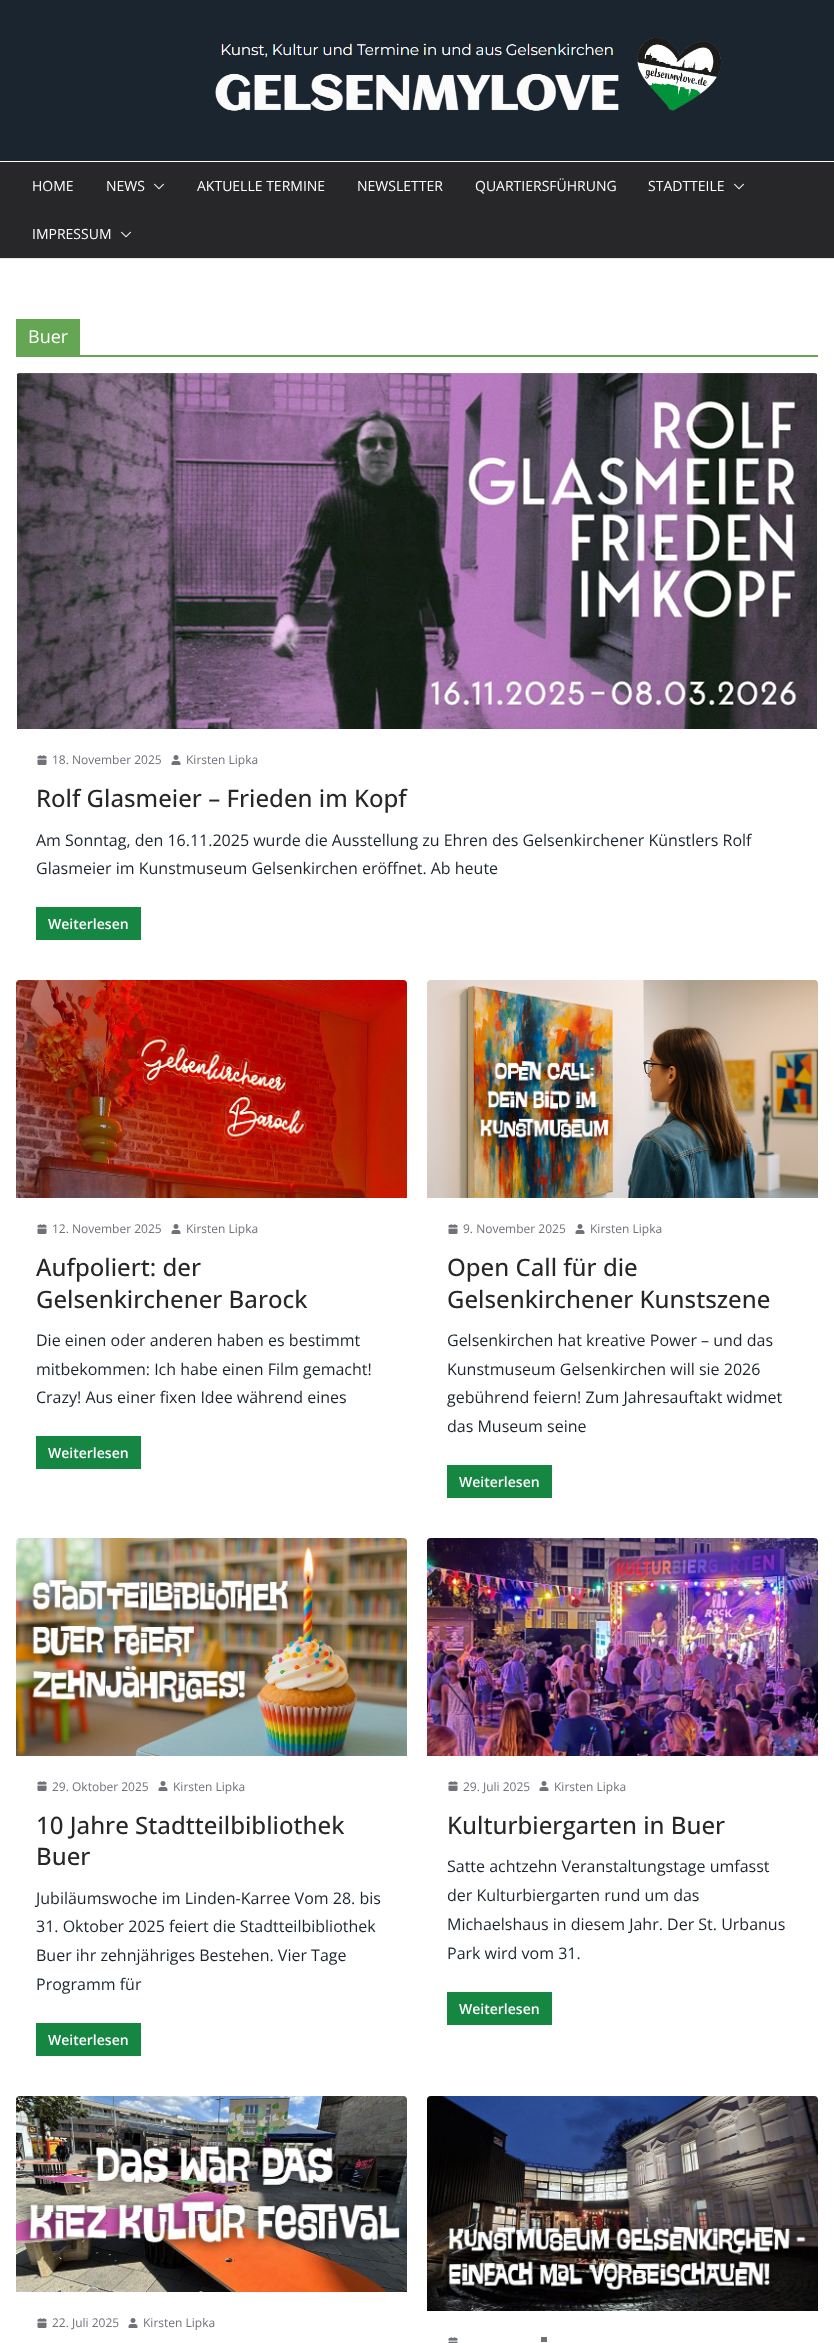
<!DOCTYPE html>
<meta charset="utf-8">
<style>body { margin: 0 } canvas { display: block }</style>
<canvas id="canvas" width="834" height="2343"></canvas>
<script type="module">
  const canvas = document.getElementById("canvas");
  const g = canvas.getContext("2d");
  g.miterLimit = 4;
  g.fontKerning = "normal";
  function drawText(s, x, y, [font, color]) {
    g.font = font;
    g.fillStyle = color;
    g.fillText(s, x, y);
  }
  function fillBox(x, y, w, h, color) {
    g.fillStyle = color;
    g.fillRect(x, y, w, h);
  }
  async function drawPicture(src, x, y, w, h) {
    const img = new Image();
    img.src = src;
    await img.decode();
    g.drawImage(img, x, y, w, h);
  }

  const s1 = ["14px Open Sans", "#FFFFFF"];
  const s2 = ["18px Open Sans", "#FFFFFF"];
  const s3 = ["12px Open Sans", "#71717A"];
  const s4 = ["500 24px Open Sans", "#27272A"];
  const s5 = ["16px Open Sans", "#1B252F"];
  const s6 = ["600 14px Open Sans", "#FFFFFF"];

  fillBox(0, 0, 834, 2343, "#FFFFFF");
  fillBox(0, 258, 834, 1, "#E4E4E7");
  await drawPicture("pic1.png", 0, 0, 834, 161);
  fillBox(0, 162, 834, 96, "#27272A");
  drawText("HOME", 32, 191, s1);
  drawText("NEWS", 106, 191, s1);
  await drawPicture("pic2.png", 154, 183, 10, 7);
  drawText("AKTUELLE TERMINE", 197, 191, s1);
  drawText("NEWSLETTER", 357, 191, s1);
  drawText("QUARTIERSFÜHRUNG", 475, 191, s1);
  drawText("STADTTEILE", 648, 191, s1);
  await drawPicture("pic2.png", 734, 183, 10, 7);
  drawText("IMPRESSUM", 32, 239, s1);
  await drawPicture("pic2.png", 121, 231, 10, 7);
  fillBox(16, 355, 802, 2, "#64A653");
  fillBox(16, 319, 64, 36, "#64A653");
  drawText("Buer", 28, 343, s2);
  await drawPicture("pic3.png", 17, 373, 800, 356);
  await drawPicture("pic4.png", 37, 755, 10, 10);
  drawText("18. November 2025", 52, 764, s3);
  await drawPicture("pic5.png", 171, 755, 10, 10);
  drawText("Kirsten Lipka", 186, 764, s3);
  drawText("Rolf Glasmeier – Frieden im Kopf", 36, 807, s4);
  drawText("Am Sonntag, den 16.11.2025 wurde die Ausstellung zu Ehren des Gelsenkirchener Künstlers Rolf", 36, 846, s5);
  drawText("Glasmeier im Kunstmuseum Gelsenkirchen eröffnet. Ab heute", 36, 874, s5);
  fillBox(36, 907, 105, 33, "#168643");
  drawText("Weiterlesen", 48, 929, s6);
  await drawPicture("pic6.png", 16, 980, 391, 218);
  await drawPicture("pic4.png", 37, 1224, 10, 10);
  drawText("12. November 2025", 52, 1233, s3);
  await drawPicture("pic5.png", 171, 1224, 10, 10);
  drawText("Kirsten Lipka", 186, 1233, s3);
  drawText("Aufpoliert: der", 36, 1276, s4);
  drawText("Gelsenkirchener Barock", 36, 1308, s4);
  drawText("Die einen oder anderen haben es bestimmt", 36, 1346, s5);
  drawText("mitbekommen: Ich habe einen Film gemacht!", 36, 1375, s5);
  drawText("Crazy! Aus einer fixen Idee während eines", 36, 1403, s5);
  fillBox(36, 1436, 105, 33, "#168643");
  drawText("Weiterlesen", 48, 1458, s6);
  await drawPicture("pic7.png", 427, 980, 391, 218);
  await drawPicture("pic4.png", 448, 1224, 10, 10);
  drawText("9. November 2025", 463, 1233, s3);
  await drawPicture("pic5.png", 575, 1224, 10, 10);
  drawText("Kirsten Lipka", 590, 1233, s3);
  drawText("Open Call für die", 447, 1276, s4);
  drawText("Gelsenkirchener Kunstszene", 447, 1308, s4);
  drawText("Gelsenkirchen hat kreative Power – und das", 447, 1346, s5);
  drawText("Kunstmuseum Gelsenkirchen will sie 2026", 447, 1375, s5);
  drawText("gebührend feiern! Zum Jahresauftakt widmet", 447, 1403, s5);
  drawText("das Museum seine", 447, 1432, s5);
  fillBox(447, 1465, 105, 33, "#168643");
  drawText("Weiterlesen", 459, 1487, s6);
  await drawPicture("pic8.png", 16, 1538, 391, 218);
  await drawPicture("pic4.png", 37, 1781, 10, 10);
  drawText("29. Oktober 2025", 52, 1791, s3);
  await drawPicture("pic5.png", 158, 1781, 10, 10);
  drawText("Kirsten Lipka", 173, 1791, s3);
  drawText("10 Jahre Stadtteilbibliothek", 36, 1834, s4);
  drawText("Buer", 36, 1865, s4);
  drawText("Jubiläumswoche im Linden-Karree Vom 28. bis", 36, 1904, s5);
  drawText("31. Oktober 2025 feiert die Stadtteilbibliothek", 36, 1932, s5);
  drawText("Buer ihr zehnjähriges Bestehen. Vier Tage", 36, 1961, s5);
  drawText("Programm für", 36, 1990, s5);
  fillBox(36, 2023, 105, 33, "#168643");
  drawText("Weiterlesen", 48, 2045, s6);
  await drawPicture("pic9.png", 427, 1538, 391, 218);
  await drawPicture("pic4.png", 448, 1781, 10, 10);
  drawText("29. Juli 2025", 463, 1791, s3);
  await drawPicture("pic5.png", 539, 1781, 10, 10);
  drawText("Kirsten Lipka", 554, 1791, s3);
  drawText("Kulturbiergarten in Buer", 447, 1834, s4);
  drawText("Satte achtzehn Veranstaltungstage umfasst", 447, 1872, s5);
  drawText("der Kulturbiergarten rund um das", 447, 1901, s5);
  drawText("Michaelshaus in diesem Jahr. Der St. Urbanus", 447, 1930, s5);
  drawText("Park wird vom 31.", 447, 1959, s5);
  fillBox(447, 1992, 105, 33, "#168643");
  drawText("Weiterlesen", 459, 2014, s6);
  await drawPicture("pic10.png", 16, 2096, 391, 196);
  await drawPicture("pic4.png", 37, 2318, 10, 10);
  drawText("22. Juli 2025", 52, 2327, s3);
  await drawPicture("pic5.png", 128, 2318, 10, 10);
  drawText("Kirsten Lipka", 143, 2327, s3);
  await drawPicture("pic11.png", 427, 2096, 391, 215);
  await drawPicture("pic12.png", 448, 2337, 10, 6);
  fillBox(541, 2337, 6, 5, "#71717A");
</script>
